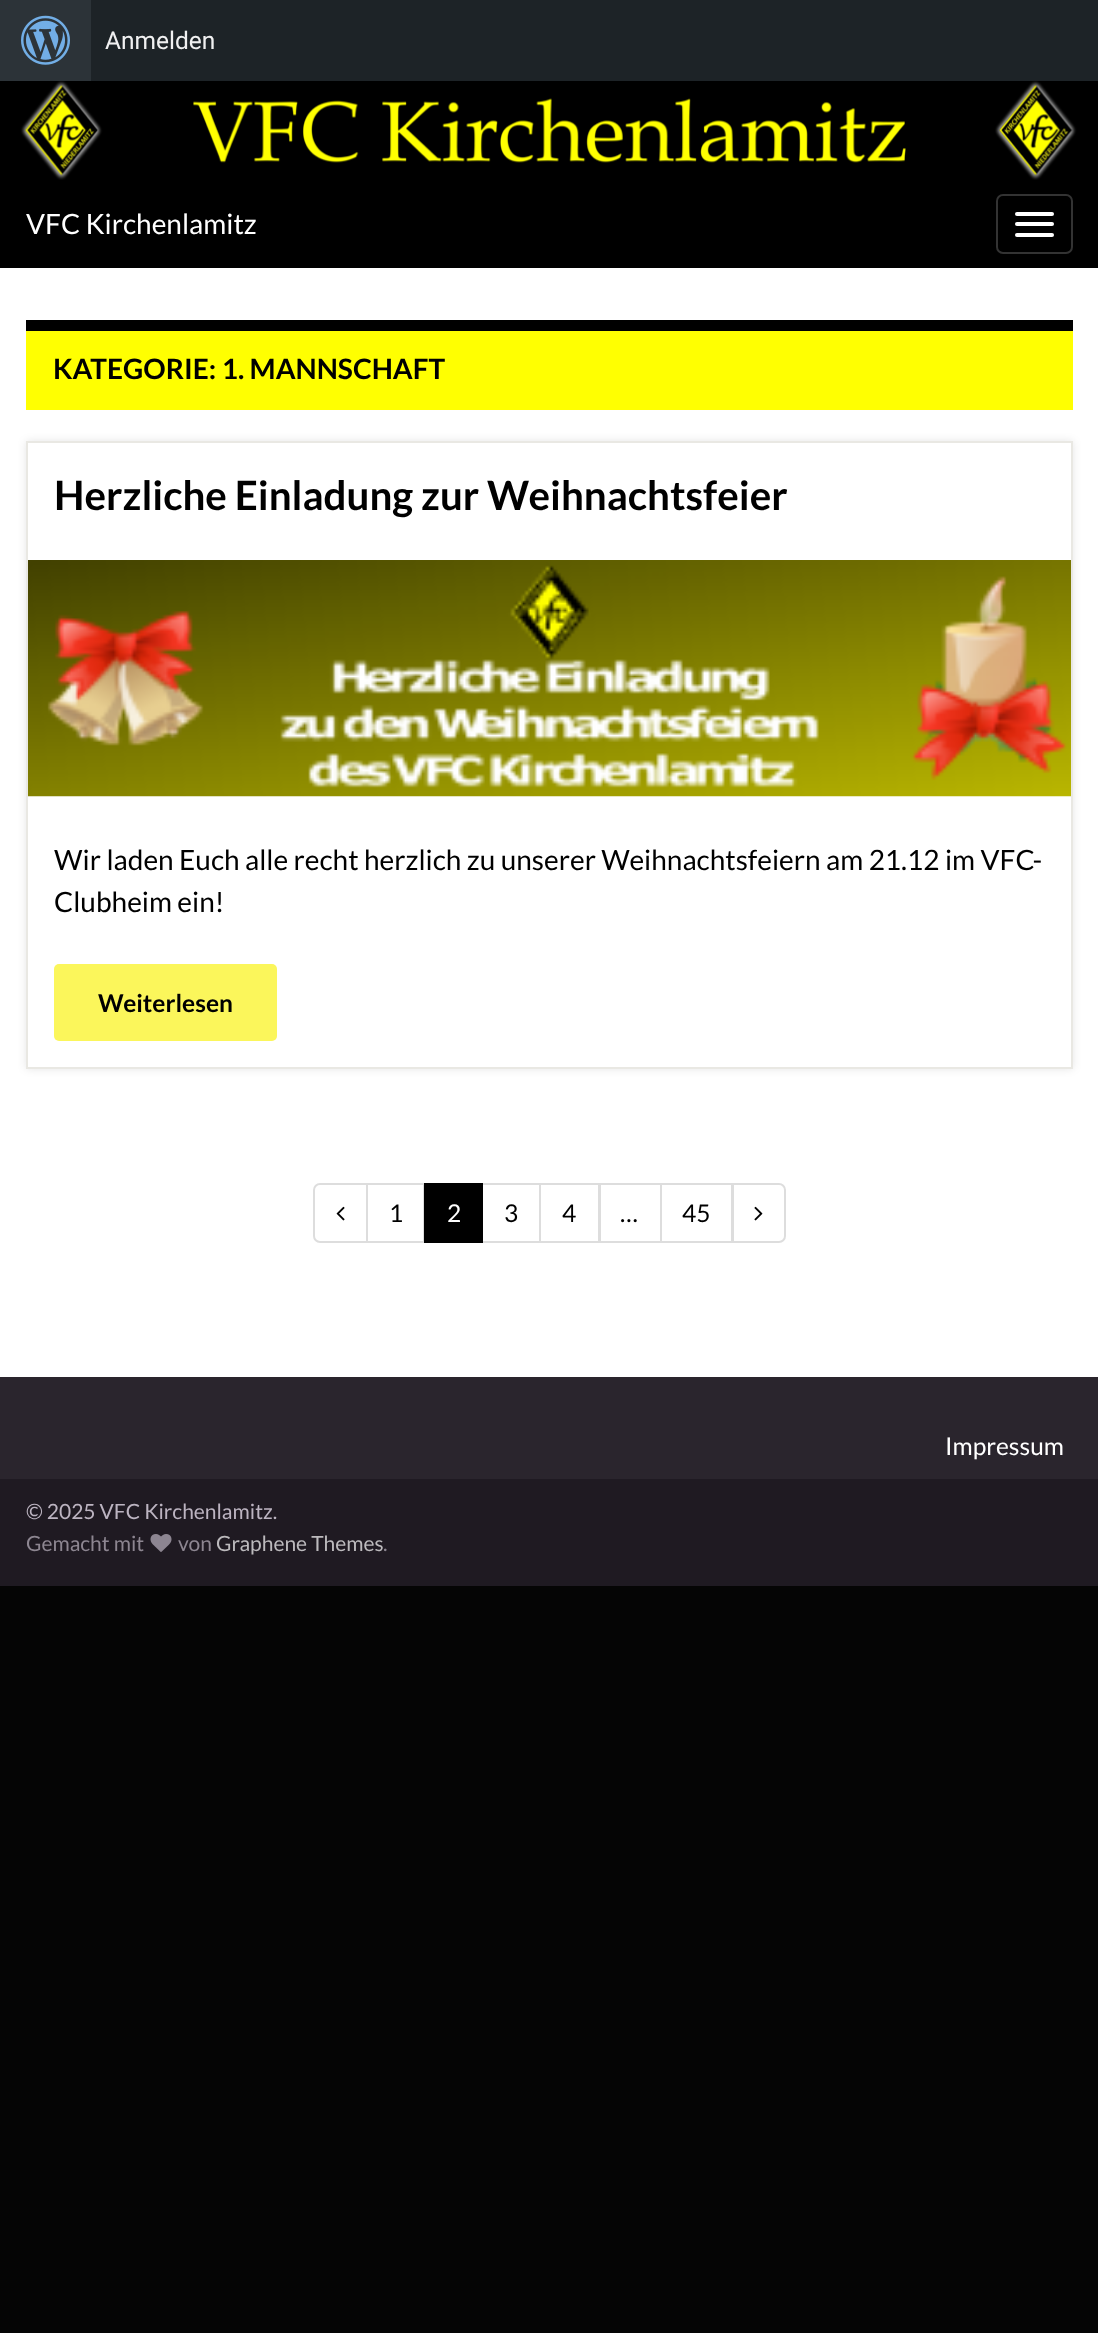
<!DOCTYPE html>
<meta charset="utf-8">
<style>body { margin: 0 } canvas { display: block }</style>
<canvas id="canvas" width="1098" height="2333"></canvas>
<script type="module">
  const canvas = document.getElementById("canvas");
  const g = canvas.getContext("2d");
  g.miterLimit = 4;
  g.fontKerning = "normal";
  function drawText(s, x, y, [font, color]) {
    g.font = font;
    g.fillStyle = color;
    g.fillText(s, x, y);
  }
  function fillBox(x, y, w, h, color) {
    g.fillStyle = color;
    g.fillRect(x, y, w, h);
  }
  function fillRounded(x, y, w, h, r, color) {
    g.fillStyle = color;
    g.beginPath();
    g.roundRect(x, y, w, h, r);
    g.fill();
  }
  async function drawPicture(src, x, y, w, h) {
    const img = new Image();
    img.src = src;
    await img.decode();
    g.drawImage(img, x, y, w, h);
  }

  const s1 = ["24.5px Roboto", "#F0F0F1"];
  const s2 = ["28px Lato", "#FFFFFF"];
  const s3 = ["bold 28px Lato", "#000000"];
  const s4 = ["bold 40.3px Lato", "#000000"];
  const s5 = ["28px Lato", "#000000"];
  const s6 = ["bold 24.5px Lato", "#000000"];
  const s7 = ["24.5px Lato", "#000000"];
  const s8 = ["24.5px Lato", "#FFFFFF"];
  const s9 = ["21px Lato", "#BCB4C1"];
  const s10 = ["21px Lato", "#8D8691"];
  const s11 = ["21px Lato", "#BCBABD"];

  fillBox(0, 0, 1098, 2333, "#050505");
  fillBox(91, 0, 1007, 81, "#1D2327");
  fillBox(0, 0, 91, 81, "#2C3338");
  await drawPicture("pic1.png", 21, 15, 49, 50);
  drawText("Anmelden", 105, 49, s1);
  await drawPicture("pic2.png", 0, 81, 1098, 99);
  fillBox(0, 180, 1098, 88, "#000000");
  drawText("VFC Kirchenlamitz", 26, 234, s2);
  g.beginPath();
  g.roundRect(997, 195, 75, 58, 6);
  g.strokeStyle = "#333333";
  g.lineWidth = 2;
  g.stroke();
  fillRounded(1015, 212, 39, 4, 2, "#FFFFFF");
  fillRounded(1015, 222, 39, 4, 2, "#FFFFFF");
  fillRounded(1015, 233, 39, 4, 2, "#FFFFFF");
  fillBox(0, 268, 1098, 1109, "#FFFFFF");
  fillBox(26, 331, 1047, 79, "#FFFF01");
  fillBox(26, 320, 1047, 11, "#000000");
  drawText("KATEGORIE: 1. MANNSCHAFT", 53, 379, s3);
  g.fillStyle = "rgba(0, 0, 0, 0.1)";
  g.filter = "blur(4.5px)";
  g.beginPath();
  g.rect(26, 441, 1047, 628);
  g.fill();
  g.filter = "none";
  g.fillStyle = "#FFFFFF";
  g.beginPath();
  g.rect(27, 442, 1045, 626);
  g.fill();
  g.strokeStyle = "#E9E8E3";
  g.stroke();
  drawText("Herzliche Einladung zur Weihnachtsfeier", 54, 510, s4);
  await drawPicture("pic3.png", 28, 560, 1043, 237);
  drawText("Wir laden Euch alle recht herzlich zu unserer Weihnachtsfeiern am 21.12 im VFC-", 54, 870, s5);
  drawText("Clubheim ein!", 54, 912, s5);
  fillRounded(54, 964, 223, 77, 5, "#FBF65B");
  drawText("Weiterlesen", 98, 1012, s6);
  g.beginPath();
  g.roundRect(314, 1184, 53, 58, [6, 0, 0, 6]);
  g.strokeStyle = "#DDDDDD";
  g.stroke();
  await drawPicture("pic4.png", 336, 1206, 9, 15);
  g.strokeRect(367, 1184, 57, 58);
  drawText("1", 389, 1222, s7);
  g.strokeRect(482, 1184, 58, 58);
  fillBox(424, 1183, 59, 60, "#000000");
  drawText("2", 447, 1222, s8);
  drawText("3", 504, 1222, s7);
  g.strokeRect(540, 1184, 59, 58);
  drawText("4", 562, 1222, s7);
  g.strokeRect(600, 1184, 61, 58);
  drawText("…", 620, 1222, s7);
  g.strokeRect(661, 1184, 71, 58);
  drawText("45", 682, 1222, s7);
  g.fillStyle = "#FFFFFF";
  g.beginPath();
  g.roundRect(733, 1184, 52, 58, [0, 6, 6, 0]);
  g.fill();
  g.stroke();
  await drawPicture("pic5.png", 754, 1206, 9, 15);
  fillBox(0, 1479, 1098, 107, "#1F1A22");
  fillBox(0, 1377, 1098, 102, "#2A252D");
  drawText("Impressum", 945, 1455, s8);
  drawText("© 2025 VFC Kirchenlamitz.", 26, 1519, s9);
  drawText("Gemacht mit", 26, 1551, s10);
  await drawPicture("pic6.png", 150, 1534, 22, 18);
  drawText("von", 178, 1551, s10);
  drawText("Graphene Themes", 216, 1551, s11);
  drawText(".", 383, 1551, s10);
</script>
